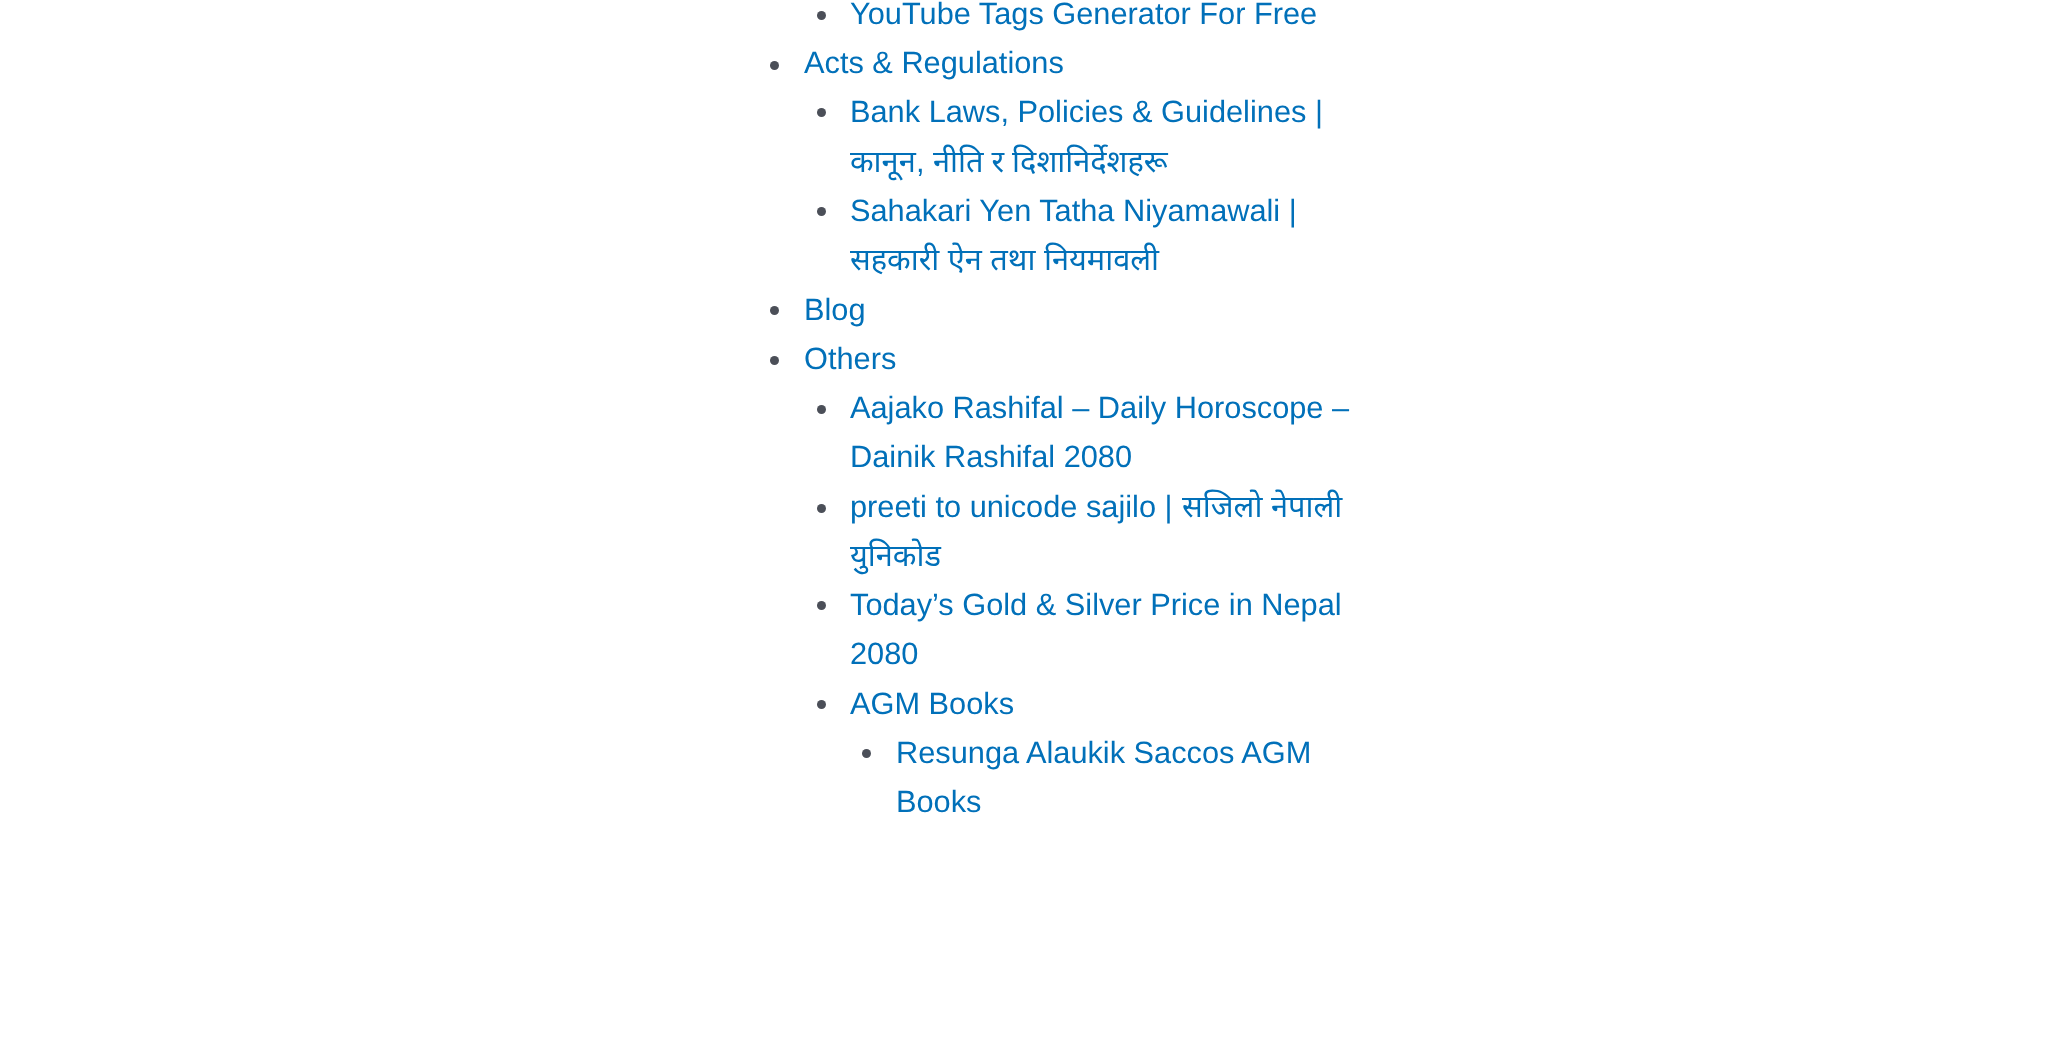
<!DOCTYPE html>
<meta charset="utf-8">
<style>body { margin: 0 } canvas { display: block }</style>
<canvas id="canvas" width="2066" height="1037"></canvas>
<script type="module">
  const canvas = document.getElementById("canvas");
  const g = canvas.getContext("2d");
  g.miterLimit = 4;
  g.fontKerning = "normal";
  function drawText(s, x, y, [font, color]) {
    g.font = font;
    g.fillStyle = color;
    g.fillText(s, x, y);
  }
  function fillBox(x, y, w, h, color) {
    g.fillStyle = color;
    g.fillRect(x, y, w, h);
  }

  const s1 = ["30.75px Liberation Sans", "#0170B9"];
  const s2 = ["30.75px Noto Sans", "#0170B9"];

  fillBox(0, 0, 2066, 1037, "#FFFFFF");
  g.fillStyle = "#4B4F58";
  g.beginPath();
  g.arc(821.5, 15.5, 4.5, 0, Math.PI * 2);
  g.fill();
  drawText("YouTube Tags Generator For Free", 850, 24, s1);
  g.fillStyle = "#4B4F58";
  g.beginPath();
  g.arc(774.5, 65.5, 4.5, 0, Math.PI * 2);
  g.fill();
  drawText("Acts & Regulations", 804, 73, s1);
  g.fillStyle = "#4B4F58";
  g.beginPath();
  g.arc(821.5, 112.5, 4.5, 0, Math.PI * 2);
  g.fill();
  drawText("Bank Laws, Policies & Guidelines |", 850, 122, s1);
  drawText("कानून", 850, 172, s2);
  drawText(",", 916, 172, s1);
  drawText("नीति र दिशानिर्देशहरू", 933, 172, s2);
  g.fillStyle = "#4B4F58";
  g.beginPath();
  g.arc(821.5, 211.5, 4.5, 0, Math.PI * 2);
  g.fill();
  drawText("Sahakari Yen Tatha Niyamawali |", 850, 221, s1);
  g.wordSpacing = "0.5px";
  drawText("सहकारी ऐन तथा नियमावली", 850, 270, s2);
  g.fillStyle = "#4B4F58";
  g.beginPath();
  g.arc(774.5, 310.5, 4.5, 0, Math.PI * 2);
  g.fill();
  g.wordSpacing = "0px";
  drawText("Blog", 804, 320, s1);
  g.fillStyle = "#4B4F58";
  g.beginPath();
  g.arc(774.5, 360.5, 4.5, 0, Math.PI * 2);
  g.fill();
  drawText("Others", 804, 369, s1);
  g.fillStyle = "#4B4F58";
  g.beginPath();
  g.arc(821.5, 409.5, 4.5, 0, Math.PI * 2);
  g.fill();
  drawText("Aajako Rashifal – Daily Horoscope –", 850, 418, s1);
  drawText("Dainik Rashifal 2080", 850, 467, s1);
  g.fillStyle = "#4B4F58";
  g.beginPath();
  g.arc(821.5, 508.5, 4.5, 0, Math.PI * 2);
  g.fill();
  drawText("preeti to unicode sajilo |", 850, 517, s1);
  drawText("सजिलाे", 1182, 517, s2);
  drawText("नेपाली", 1271, 517, s2);
  drawText("युनिकाेड", 850, 566, s2);
  g.fillStyle = "#4B4F58";
  g.beginPath();
  g.arc(821.5, 605.5, 4.5, 0, Math.PI * 2);
  g.fill();
  drawText("Today’s Gold & Silver Price in Nepal", 850, 615, s1);
  drawText("2080", 850, 664, s1);
  g.fillStyle = "#4B4F58";
  g.beginPath();
  g.arc(821.5, 704.5, 4.5, 0, Math.PI * 2);
  g.fill();
  drawText("AGM Books", 850, 714, s1);
  g.fillStyle = "#4B4F58";
  g.beginPath();
  g.arc(866.5, 753.5, 4.5, 0, Math.PI * 2);
  g.fill();
  drawText("Resunga Alaukik Saccos AGM", 896, 763, s1);
  drawText("Books", 896, 812, s1);
</script>
